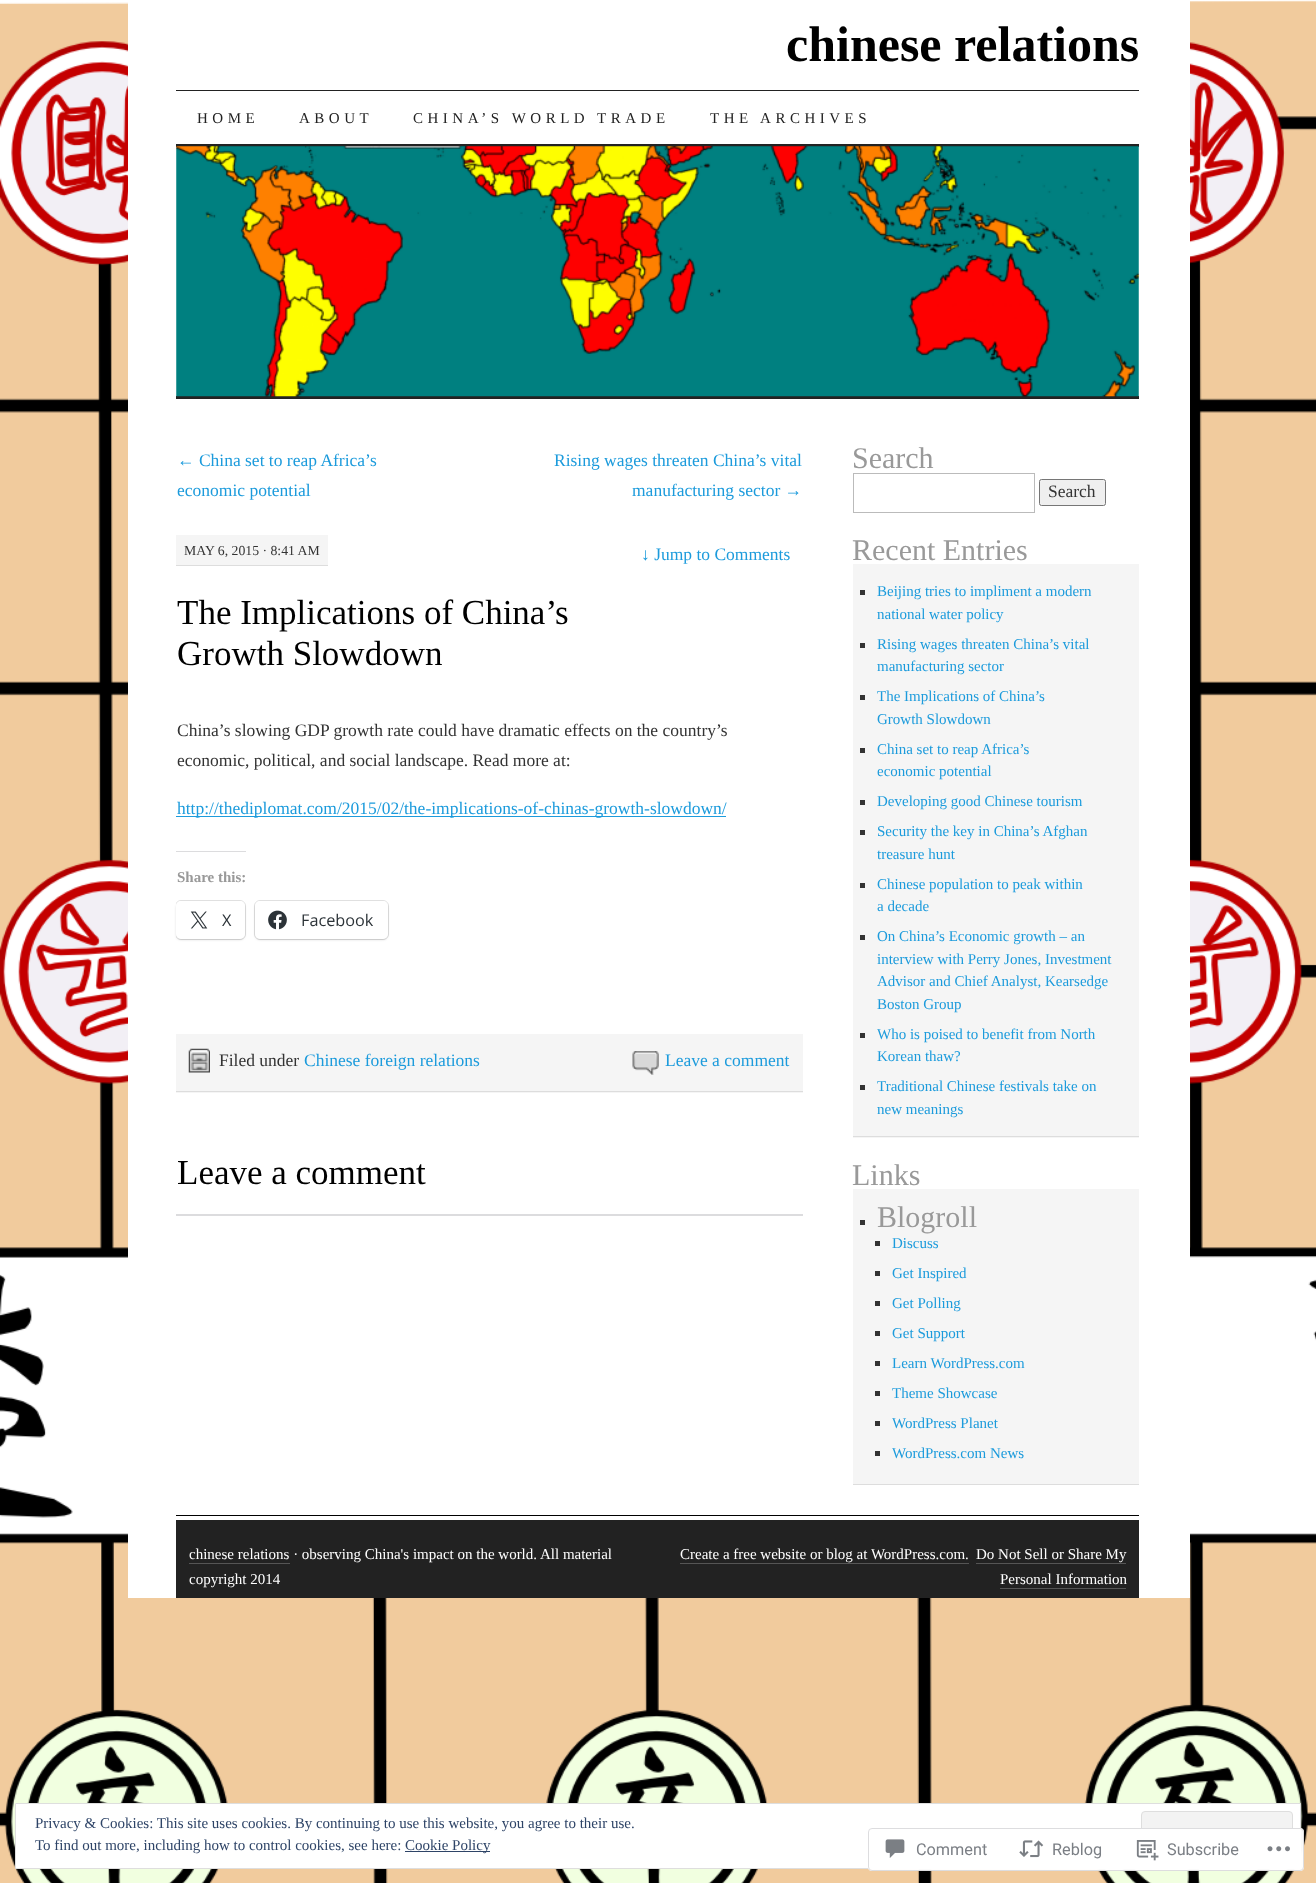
<!DOCTYPE html>
<meta charset="utf-8">
<style>body { margin: 0 } canvas { display: block }</style>
<canvas id="canvas" width="1316" height="1883"></canvas>
<script type="module">
  const canvas = document.getElementById("canvas");
  const g = canvas.getContext("2d");
  g.miterLimit = 4;
  g.fontKerning = "normal";
  function drawText(s, x, y, [font, color]) {
    g.font = font;
    g.fillStyle = color;
    g.fillText(s, x, y);
  }
  function fillBox(x, y, w, h, color) {
    g.fillStyle = color;
    g.fillRect(x, y, w, h);
  }
  function fillRounded(x, y, w, h, r, color) {
    g.fillStyle = color;
    g.beginPath();
    g.roundRect(x, y, w, h, r);
    g.fill();
  }
  async function drawPicture(src, x, y, w, h) {
    const img = new Image();
    img.src = src;
    await img.decode();
    g.drawImage(img, x, y, w, h);
  }

  const s1 = ["bold 50px Liberation Serif", "#000000"];
  const s2 = ["15px Liberation Serif", "#222222"];
  const s3 = ["17.5px Liberation Serif", "#1C9BDC"];
  const s4 = ["13.75px Liberation Serif", "#333333"];
  const s5 = ["35px Liberation Serif", "#000000"];
  const s6 = ["17.5px Liberation Serif", "#333333"];
  const s7 = ["bold 15px Liberation Serif", "#999999"];
  const s8 = ["16.25px Open Sans", "#2C3338"];
  const s9 = ["30px Liberation Serif", "#999999"];
  const s10 = ["15px Liberation Serif", "#1C9BDC"];
  const s11 = ["15px Liberation Serif", "#FFFFFF"];
  const s12 = ["15px Liberation Serif", "#2E4467"];
  const s13 = ["16.25px Roboto", "#7B7F85"];

  fillBox(0, 0, 1316, 1883, "#FFFFFF");
  await drawPicture("pic1.png", 0, 0, 1316, 1883);
  fillBox(128, 1, 1062, 1597, "#FFFFFF");
  drawText("chinese relations", 786, 61, s1);
  fillBox(176, 90, 963, 1, "#222222");
  fillBox(176, 144, 963, 3, "#222222");
  g.letterSpacing = "4.5px";
  drawText("HOME", 197, 123, s2);
  drawText("ABOUT", 299, 123, s2);
  drawText("CHINA’S WORLD TRADE", 413, 123, s2);
  drawText("THE ARCHIVES", 710, 123, s2);
  fillBox(176, 396, 963, 3, "#222222");
  await drawPicture("pic2.png", 176, 146, 963, 251);
  g.letterSpacing = "0px";
  drawText("← China set to reap Africa’s", 177, 466, s3);
  drawText("economic potential", 177, 496, s3);
  drawText("Rising wages threaten China’s vital", 554, 466, s3);
  drawText("manufacturing sector →", 632, 496, s3);
  fillBox(176, 535, 152, 30, "#F5F5F5");
  fillBox(176, 565, 152, 1, "#DDDDDD");
  drawText("MAY 6, 2015 · 8:41 AM", 184, 555, s4);
  drawText("↓ Jump to Comments", 641, 560, s3);
  drawText("The Implications of China’s", 177, 624, s5);
  drawText("Growth Slowdown", 177, 665, s5);
  drawText("China’s slowing GDP growth rate could have dramatic effects on the country’s", 177, 736, s6);
  drawText("economic, political, and social landscape. Read more at:", 177, 766, s6);
  fillBox(176, 816, 550, 1, "#1C9BDC");
  drawText("http://thediplomat.com/2015/02/the-implications-of-chinas-growth-slowdown/", 177, 814, s3);
  fillBox(176, 851, 70, 1, "#DCDCDE");
  drawText("Share this:", 177, 882, s7);
  g.save();
  g.beginPath();
  g.rect(176, 446, 627, 770);
  g.clip();
  g.beginPath();
  g.roundRect(175.5, 900.5, 70, 39, 5.5);
  g.strokeStyle = "#E0E0E0";
  g.stroke();
  g.restore();
  g.fillStyle = "rgba(0, 0, 0, 0.12)";
  g.filter = "blur(1px)";
  g.beginPath();
  g.roundRect(176, 903, 69, 37, 5);
  g.fill();
  g.filter = "none";
  fillRounded(176, 901, 69, 38, 5, "#FFFFFF");
  await drawPicture("pic3.png", 190, 911, 18, 18);
  drawText("X", 222, 926, s8);
  g.beginPath();
  g.roundRect(254.5, 900.5, 134, 39, 5.5);
  g.strokeStyle = "#E0E0E0";
  g.stroke();
  g.fillStyle = "rgba(0, 0, 0, 0.12)";
  g.filter = "blur(1px)";
  g.beginPath();
  g.roundRect(255, 903, 133, 37, 5);
  g.fill();
  g.filter = "none";
  fillRounded(255, 901, 133, 38, 5, "#FFFFFF");
  await drawPicture("pic4.png", 268, 910, 19, 20);
  drawText("Facebook", 301, 926, s8);
  fillBox(176, 1034, 627, 59, "#F5F5F5");
  fillBox(176, 1091, 627, 1, "#DDDDDD");
  await drawPicture("pic5.png", 188, 1048, 22, 25);
  drawText("Filed under", 219, 1066, s6);
  drawText("Chinese foreign relations", 304, 1066, s3);
  await drawPicture("pic6.png", 632, 1051, 27, 24);
  drawText("Leave a comment", 665, 1066, s3);
  drawText("Leave a comment", 177, 1184, s5);
  fillBox(176, 1214, 627, 2, "#DCDCDE");
  drawText("Search", 852, 468, s9);
  g.strokeStyle = "#BBBBBB";
  g.strokeRect(853.5, 473.5, 181, 39);
  g.fillStyle = "#EFEFEF";
  g.beginPath();
  g.roundRect(1039.5, 479.5, 66, 26, 2);
  g.fill();
  g.strokeStyle = "#767676";
  g.stroke();
  drawText("Search", 1048, 497, s6);
  drawText("Recent Entries", 852, 560, s9);
  fillBox(853, 564, 286, 574, "#F5F5F5");
  fillBox(853, 1136, 286, 1, "#DDDDDD");
  fillBox(860, 590, 5, 5, "#333333");
  drawText("Beijing tries to impliment a modern", 877, 596, s10);
  drawText("national water policy", 877, 619, s10);
  fillBox(860, 643, 5, 5, "#333333");
  drawText("Rising wages threaten China’s vital", 877, 649, s10);
  drawText("manufacturing sector", 877, 671, s10);
  fillBox(860, 695, 5, 5, "#333333");
  drawText("The Implications of China’s", 877, 701, s10);
  drawText("Growth Slowdown", 877, 724, s10);
  fillBox(860, 748, 5, 5, "#333333");
  drawText("China set to reap Africa’s", 877, 754, s10);
  drawText("economic potential", 877, 776, s10);
  fillBox(860, 800, 5, 5, "#333333");
  drawText("Developing good Chinese tourism", 877, 806, s10);
  fillBox(860, 830, 5, 5, "#333333");
  drawText("Security the key in China’s Afghan", 877, 836, s10);
  drawText("treasure hunt", 877, 859, s10);
  fillBox(860, 883, 5, 5, "#333333");
  drawText("Chinese population to peak within", 877, 889, s10);
  drawText("a decade", 877, 911, s10);
  fillBox(860, 935, 5, 5, "#333333");
  drawText("On China’s Economic growth – an", 877, 941, s10);
  drawText("interview with Perry Jones, Investment", 877, 964, s10);
  drawText("Advisor and Chief Analyst, Kearsedge", 877, 986, s10);
  drawText("Boston Group", 877, 1009, s10);
  fillBox(860, 1033, 5, 5, "#333333");
  drawText("Who is poised to benefit from North", 877, 1039, s10);
  drawText("Korean thaw?", 877, 1061, s10);
  fillBox(860, 1085, 5, 5, "#333333");
  drawText("Traditional Chinese festivals take on", 877, 1091, s10);
  drawText("new meanings", 877, 1114, s10);
  drawText("Links", 852, 1185, s9);
  fillBox(853, 1189, 286, 295, "#F5F5F5");
  fillBox(853, 1484, 286, 1, "#DDDDDD");
  fillBox(860, 1220, 5, 5, "#333333");
  drawText("Blogroll", 877, 1227, s9);
  fillBox(875, 1241, 5, 5, "#333333");
  drawText("Discuss", 892, 1248, s10);
  fillBox(875, 1271, 5, 5, "#333333");
  drawText("Get Inspired", 892, 1278, s10);
  fillBox(875, 1301, 5, 5, "#333333");
  drawText("Get Polling", 892, 1308, s10);
  fillBox(875, 1331, 5, 5, "#333333");
  drawText("Get Support", 892, 1338, s10);
  fillBox(875, 1361, 5, 5, "#333333");
  drawText("Learn WordPress.com", 892, 1368, s10);
  fillBox(875, 1391, 5, 5, "#333333");
  drawText("Theme Showcase", 892, 1398, s10);
  fillBox(875, 1421, 5, 5, "#333333");
  drawText("WordPress Planet", 892, 1428, s10);
  fillBox(875, 1451, 5, 5, "#333333");
  drawText("WordPress.com News", 892, 1458, s10);
  fillBox(176, 1515, 963, 1, "#000000");
  fillBox(176, 1520, 963, 78, "#222222");
  drawText("chinese relations · observing China's impact on the world. All material", 189, 1559, s11);
  fillBox(189, 1563, 101, 1, "#555555");
  drawText("copyright 2014", 189, 1584, s11);
  drawText("Create a free website or blog at WordPress.com.", 680, 1559, s11);
  fillBox(680, 1563, 289, 1, "#555555");
  drawText("Do Not Sell or Share My", 976, 1559, s11);
  fillBox(976, 1563, 150, 1, "#555555");
  drawText("Personal Information", 1000, 1584, s11);
  fillBox(1000, 1588, 126, 1, "#555555");
  g.fillStyle = "#FFFFFF";
  g.beginPath();
  g.rect(15.5, 1803.5, 1285, 65);
  g.fill();
  g.strokeStyle = "#DEDEDE";
  g.stroke();
  drawText("Privacy & Cookies: This site uses cookies. By continuing to use this website, you agree to their use.", 35, 1828, s12);
  g.fillStyle = "#F3F3F3";
  g.beginPath();
  g.roundRect(1141.5, 1811.5, 151, 48, 3.5);
  g.fill();
  g.stroke();
  drawText("To find out more, including how to control cookies, see here:", 35, 1850, s12);
  fillBox(405, 1851, 85, 1, "#2E4467");
  drawText("Cookie Policy", 405, 1850, s12);
  fillRounded(868, 1828, 436, 43, 4, "rgba(255, 255, 255, 0.98)");
  g.beginPath();
  g.roundRect(868.5, 1828.5, 435, 42, 3.5);
  g.strokeStyle = "rgba(220, 220, 222, 0.98)";
  g.stroke();
  await drawPicture("pic7.png", 885, 1839, 20, 19);
  drawText("Comment", 916, 1855, s13);
  await drawPicture("pic8.png", 1019, 1840, 25, 18);
  drawText("Reblog", 1052, 1855, s13);
  await drawPicture("pic9.png", 1136, 1840, 23, 21);
  drawText("Subscribe", 1167, 1855, s13);
  await drawPicture("pic10.png", 1267, 1846, 23, 6);
</script>
